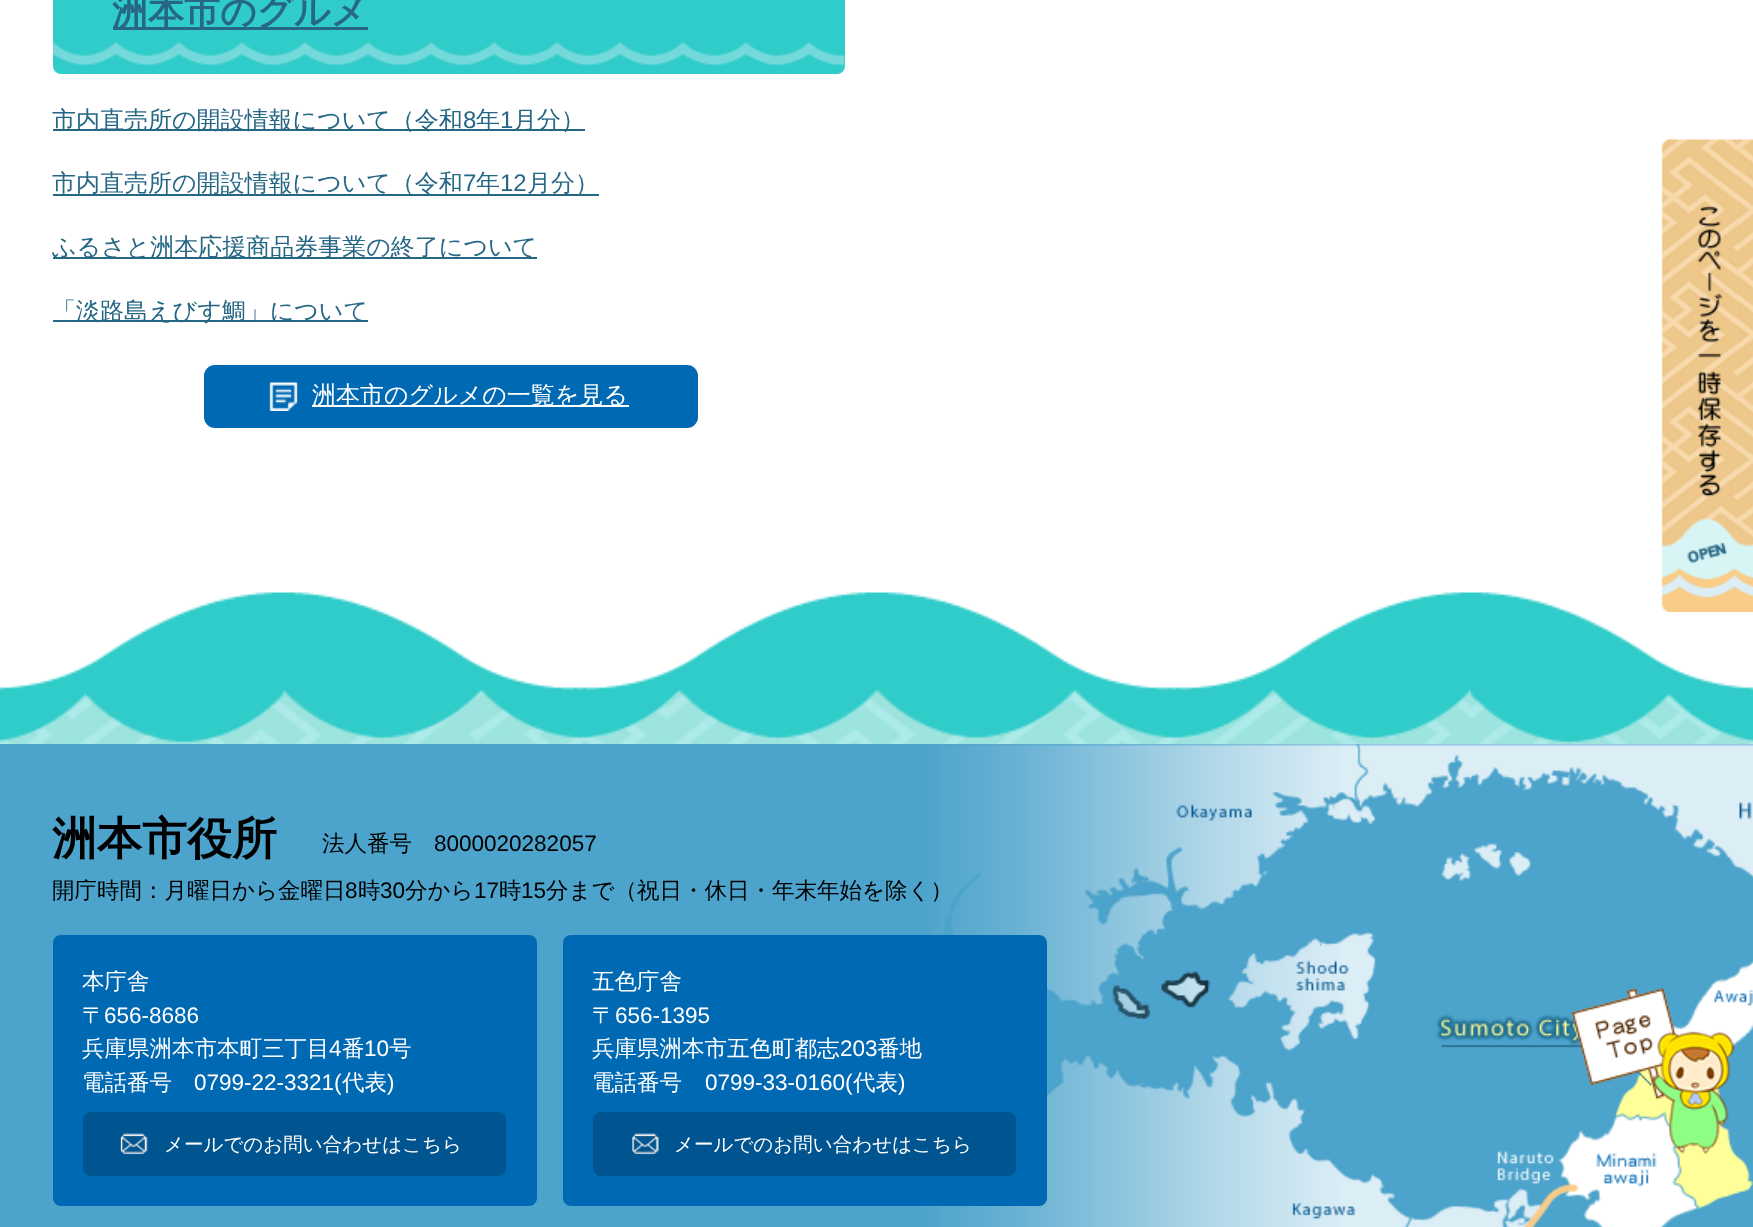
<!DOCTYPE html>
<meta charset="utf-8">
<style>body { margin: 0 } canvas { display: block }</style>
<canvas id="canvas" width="1753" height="1227"></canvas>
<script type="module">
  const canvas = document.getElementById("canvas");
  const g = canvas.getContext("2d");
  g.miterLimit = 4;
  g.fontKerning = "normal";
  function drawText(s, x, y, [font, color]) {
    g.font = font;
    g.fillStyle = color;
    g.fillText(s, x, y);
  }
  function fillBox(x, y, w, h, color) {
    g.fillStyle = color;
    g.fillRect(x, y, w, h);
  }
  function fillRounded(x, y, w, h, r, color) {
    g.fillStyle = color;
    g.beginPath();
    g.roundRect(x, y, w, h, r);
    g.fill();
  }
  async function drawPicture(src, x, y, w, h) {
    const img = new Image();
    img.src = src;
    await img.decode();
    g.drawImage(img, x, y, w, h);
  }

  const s1 = ["bold 36px WenQuanYi Zen Hei", "#266785"];
  const s2 = ["500 24px WenQuanYi Zen Hei", "#266785"];
  const s3 = ["24px Liberation Sans", "#266785"];
  const s4 = ["500 24px WenQuanYi Zen Hei", "#FFFFFF"];
  const s5 = ["bold 45px WenQuanYi Zen Hei", "#000000"];
  const s6 = ["500 22.5px WenQuanYi Zen Hei", "#000000"];
  const s7 = ["22.5px Liberation Sans", "#000000"];
  const s8 = ["500 22.5px WenQuanYi Zen Hei", "#FFFFFF"];
  const s9 = ["22.5px Liberation Sans", "#FFFFFF"];
  const s10 = ["500 19.5px WenQuanYi Zen Hei", "#FFFFFF"];

  fillBox(0, 0, 1753, 1227, "#FFFFFF");
  fillRounded(53, -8, 792, 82, 8, "#30CCC9");
  await drawPicture("pic1.png", 52, 41, 793, 25);
  fillBox(113, 27, 255, 3, "#266785");
  drawText("洲本市のグルメ", 112, 24, s1);
  fillBox(53, 129, 532, 2, "#266785");
  drawText("市内直売所の開設情報について（令和", 52, 128, s2);
  drawText("8", 463, 128, s3);
  drawText("年", 476, 128, s2);
  drawText("1", 500, 128, s3);
  drawText("月分）", 513, 128, s2);
  fillBox(53, 194, 546, 2, "#266785");
  drawText("市内直売所の開設情報について（令和", 52, 191, s2);
  drawText("7", 463, 191, s3);
  drawText("年", 476, 191, s2);
  drawText("12", 500, 191, s3);
  drawText("月分）", 527, 191, s2);
  fillBox(53, 257, 484, 2, "#266785");
  drawText("ふるさと洲本応援商品券事業の終了について", 52, 255, s2);
  fillBox(53, 320, 315, 2, "#266785");
  drawText("「淡路島えびす鯛」について", 52, 319, s2);
  fillRounded(204, 365, 494, 63, 11, "#0069B3");
  await drawPicture("pic2.png", 269, 382, 29, 29);
  fillBox(312, 405, 317, 2, "#FFFFFF");
  drawText("洲本市のグルメの一覧を見る", 312, 403, s4);
  await drawPicture("pic3.png", 0, 592, 1753, 152);
  fillBox(0, 744, 1753, 483, "#4CA3CB");
  await drawPicture("pic4.png", 927, 744, 826, 483);
  drawText("洲本市役所", 52, 854, s5);
  drawText("法人番号", 322, 851, s6);
  drawText("8000020282057", 434, 851, s7);
  drawText("開庁時間：月曜日から金曜日", 52, 898, s6);
  drawText("8", 345, 898, s7);
  drawText("時", 358, 898, s6);
  drawText("30", 380, 898, s7);
  drawText("分から", 405, 898, s6);
  drawText("17", 474, 898, s7);
  drawText("時", 499, 898, s6);
  drawText("15", 521, 898, s7);
  drawText("分まで（祝日・休日・年末年始を除く）", 546, 898, s6);
  fillRounded(53, 935, 484, 271, 8, "#0069B3");
  drawText("本庁舎", 82, 989, s8);
  drawText("〒", 82, 1023, s8);
  drawText("656-8686", 104, 1023, s9);
  drawText("兵庫県洲本市本町三丁目", 82, 1056, s8);
  drawText("4", 329, 1056, s9);
  drawText("番", 342, 1056, s8);
  drawText("10", 364, 1056, s9);
  drawText("号", 389, 1056, s8);
  drawText("電話番号", 82, 1090, s8);
  drawText("0799-22-3321(", 194, 1090, s9);
  drawText("代表", 342, 1090, s8);
  drawText(")", 387, 1090, s9);
  fillRounded(83, 1112, 423, 64, 8, "#00548F");
  await drawPicture("pic5.png", 120, 1133, 28, 22);
  drawText("メールでのお問い合わせはこちら", 164, 1151, s10);
  fillRounded(563, 935, 484, 271, 8, "#0069B3");
  drawText("五色庁舎", 592, 989, s8);
  drawText("〒", 592, 1023, s8);
  drawText("656-1395", 615, 1023, s9);
  drawText("兵庫県洲本市五色町都志", 592, 1056, s8);
  drawText("203", 840, 1056, s9);
  drawText("番地", 877, 1056, s8);
  drawText("電話番号", 592, 1090, s8);
  drawText("0799-33-0160(", 705, 1090, s9);
  drawText("代表", 853, 1090, s8);
  drawText(")", 898, 1090, s9);
  fillRounded(593, 1112, 423, 64, 8, "#00548F");
  await drawPicture("pic6.png", 632, 1133, 27, 22);
  drawText("メールでのお問い合わせはこちら", 674, 1151, s10);
  await drawPicture("pic7.png", 1572, 988, 163, 166);
  await drawPicture("pic8.png", 1661, 139, 92, 473);
</script>
